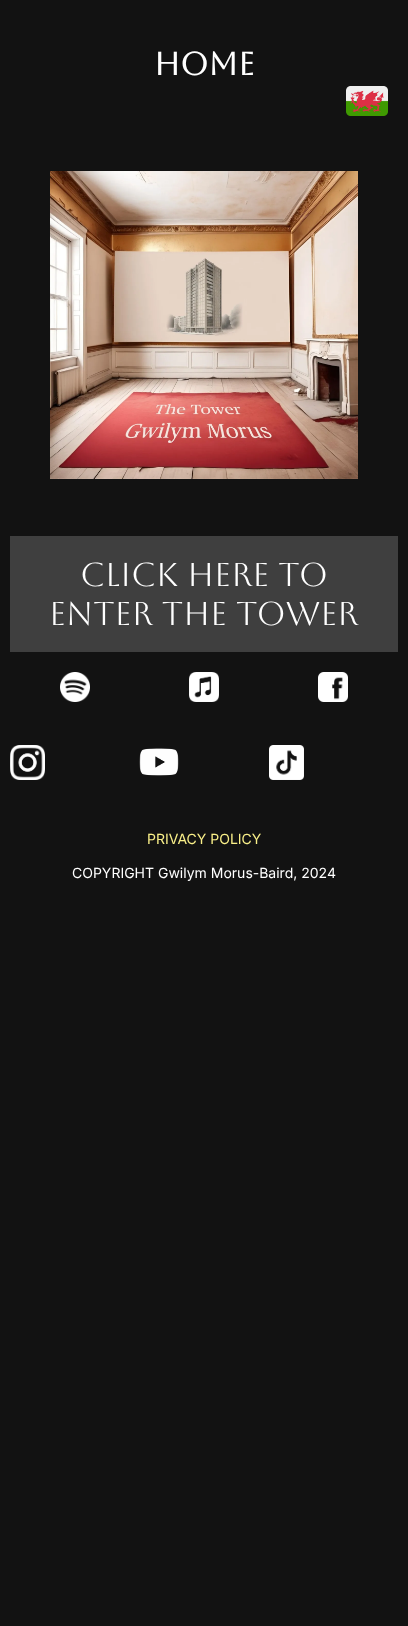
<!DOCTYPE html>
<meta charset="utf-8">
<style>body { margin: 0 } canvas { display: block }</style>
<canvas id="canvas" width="408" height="1626"></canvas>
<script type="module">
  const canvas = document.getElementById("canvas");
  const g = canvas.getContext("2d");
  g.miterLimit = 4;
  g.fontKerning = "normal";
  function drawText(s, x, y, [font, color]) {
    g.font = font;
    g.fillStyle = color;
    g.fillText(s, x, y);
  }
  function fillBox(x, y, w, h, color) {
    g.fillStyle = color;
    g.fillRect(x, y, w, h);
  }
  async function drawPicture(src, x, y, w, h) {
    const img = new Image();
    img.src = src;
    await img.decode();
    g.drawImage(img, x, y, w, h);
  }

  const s1 = ["bold 32px Aboreto", "#FFFFFF"];
  const s2 = ["33px Aboreto", "#FFFFFF"];
  const s3 = ["14px Inter", "#FAF089"];
  const s4 = ["14px Inter", "#FFFFFF"];

  fillBox(0, 0, 408, 1626, "#121212");
  drawText("home", 154, 75, s1);
  await drawPicture("pic1.png", 346, 86, 42, 30);
  await drawPicture("pic2.png", 50, 171, 308, 308);
  fillBox(10, 536, 388, 116, "#3F3F3F");
  drawText("Click here to", 80, 586, s2);
  drawText("enter The Tower", 49, 625, s2);
  await drawPicture("pic3.png", 60, 672, 30, 30);
  await drawPicture("pic4.png", 189, 672, 30, 30);
  await drawPicture("pic5.png", 318, 672, 30, 30);
  await drawPicture("pic6.png", 10, 745, 35, 35);
  await drawPicture("pic7.png", 139, 748, 40, 28);
  await drawPicture("pic8.png", 269, 745, 35, 35);
  drawText("PRIVACY POLICY", 147, 844, s3);
  drawText("COPYRIGHT Gwilym Morus-Baird, 2024", 72, 878, s4);
</script>
